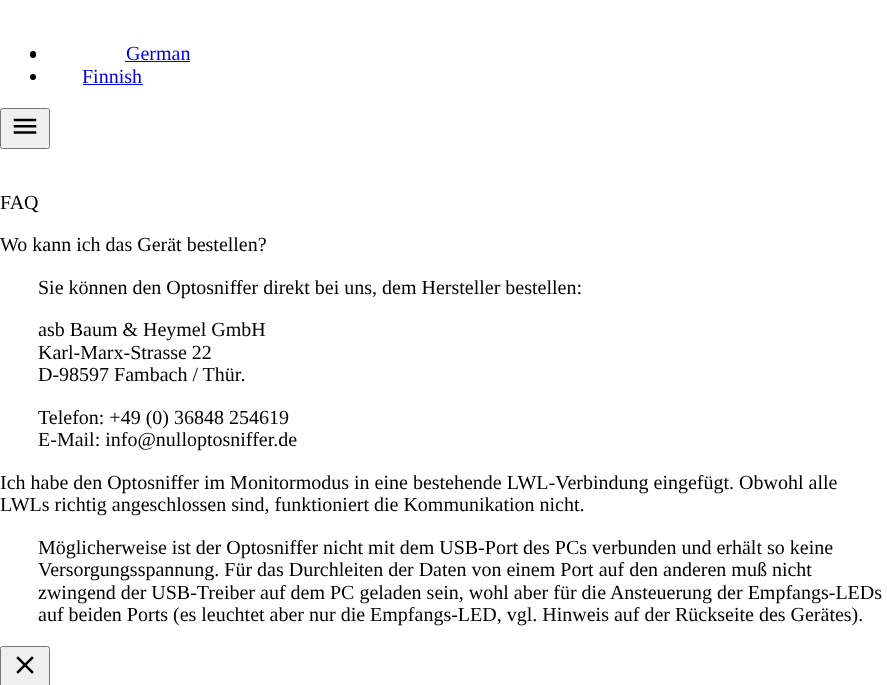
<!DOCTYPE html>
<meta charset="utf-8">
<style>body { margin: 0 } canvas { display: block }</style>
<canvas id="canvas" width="887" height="685"></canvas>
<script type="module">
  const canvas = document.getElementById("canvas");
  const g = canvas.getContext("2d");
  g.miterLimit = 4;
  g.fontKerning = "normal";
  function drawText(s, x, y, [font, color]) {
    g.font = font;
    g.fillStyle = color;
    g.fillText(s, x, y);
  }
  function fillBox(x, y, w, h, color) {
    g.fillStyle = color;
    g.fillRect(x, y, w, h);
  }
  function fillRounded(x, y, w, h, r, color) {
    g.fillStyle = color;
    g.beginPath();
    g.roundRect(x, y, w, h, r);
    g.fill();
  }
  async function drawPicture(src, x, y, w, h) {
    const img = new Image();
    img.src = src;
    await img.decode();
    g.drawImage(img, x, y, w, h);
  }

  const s1 = ["20px Liberation Serif", "#0000EE"];
  const s2 = ["20px Liberation Serif", "#000000"];

  fillBox(0, 0, 887, 685, "#FFFFFF");
  fillRounded(30, 51, 6, 7, 3, "#000000");
  drawText("German", 126, 60, s1);
  fillBox(125, 61, 65, 1, "#0000EE");
  g.fillStyle = "#000000";
  g.beginPath();
  g.arc(33, 77, 3, 0, Math.PI * 2);
  g.fill();
  drawText("Finnish", 82, 83, s1);
  fillBox(83, 84, 60, 1, "#0000EE");
  g.fillStyle = "#EFEFEF";
  g.beginPath();
  g.roundRect(0.5, 108.5, 49, 40, 2);
  g.fill();
  g.strokeStyle = "#767676";
  g.stroke();
  await drawPicture("pic1.png", 13, 118, 24, 16);
  drawText("FAQ", 0, 209, s2);
  drawText("Wo kann ich das Gerät bestellen?", 0, 251, s2);
  drawText("Sie können den Optosniffer direkt bei uns, dem Hersteller bestellen:", 38, 294, s2);
  drawText("asb Baum & Heymel GmbH", 38, 336, s2);
  drawText("Karl-Marx-Strasse 22", 38, 359, s2);
  drawText("D-98597 Fambach / Thür.", 38, 381, s2);
  drawText("Telefon: +49 (0) 36848 254619", 38, 424, s2);
  drawText("E-Mail: info@nulloptosniffer.de", 38, 446, s2);
  drawText("Ich habe den Optosniffer im Monitormodus in eine bestehende LWL-Verbindung eingefügt. Obwohl alle", 0, 489, s2);
  drawText("LWLs richtig angeschlossen sind, funktioniert die Kommunikation nicht.", 0, 511, s2);
  drawText("Möglicherweise ist der Optosniffer nicht mit dem USB-Port des PCs verbunden und erhält so keine", 38, 554, s2);
  drawText("Versorgungsspannung. Für das Durchleiten der Daten von einem Port auf den anderen muß nicht", 38, 576, s2);
  drawText("zwingend der USB-Treiber auf dem PC geladen sein, wohl aber für die Ansteuerung der Empfangs-LEDs", 38, 599, s2);
  drawText("auf beiden Ports (es leuchtet aber nur die Empfangs-LED, vgl. Hinweis auf der Rückseite des Gerätes).", 38, 621, s2);
  g.fillStyle = "#EFEFEF";
  g.beginPath();
  g.roundRect(0.5, 646.5, 49, 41, 2);
  g.fill();
  g.stroke();
  await drawPicture("pic2.png", 16, 656, 18, 18);
</script>
